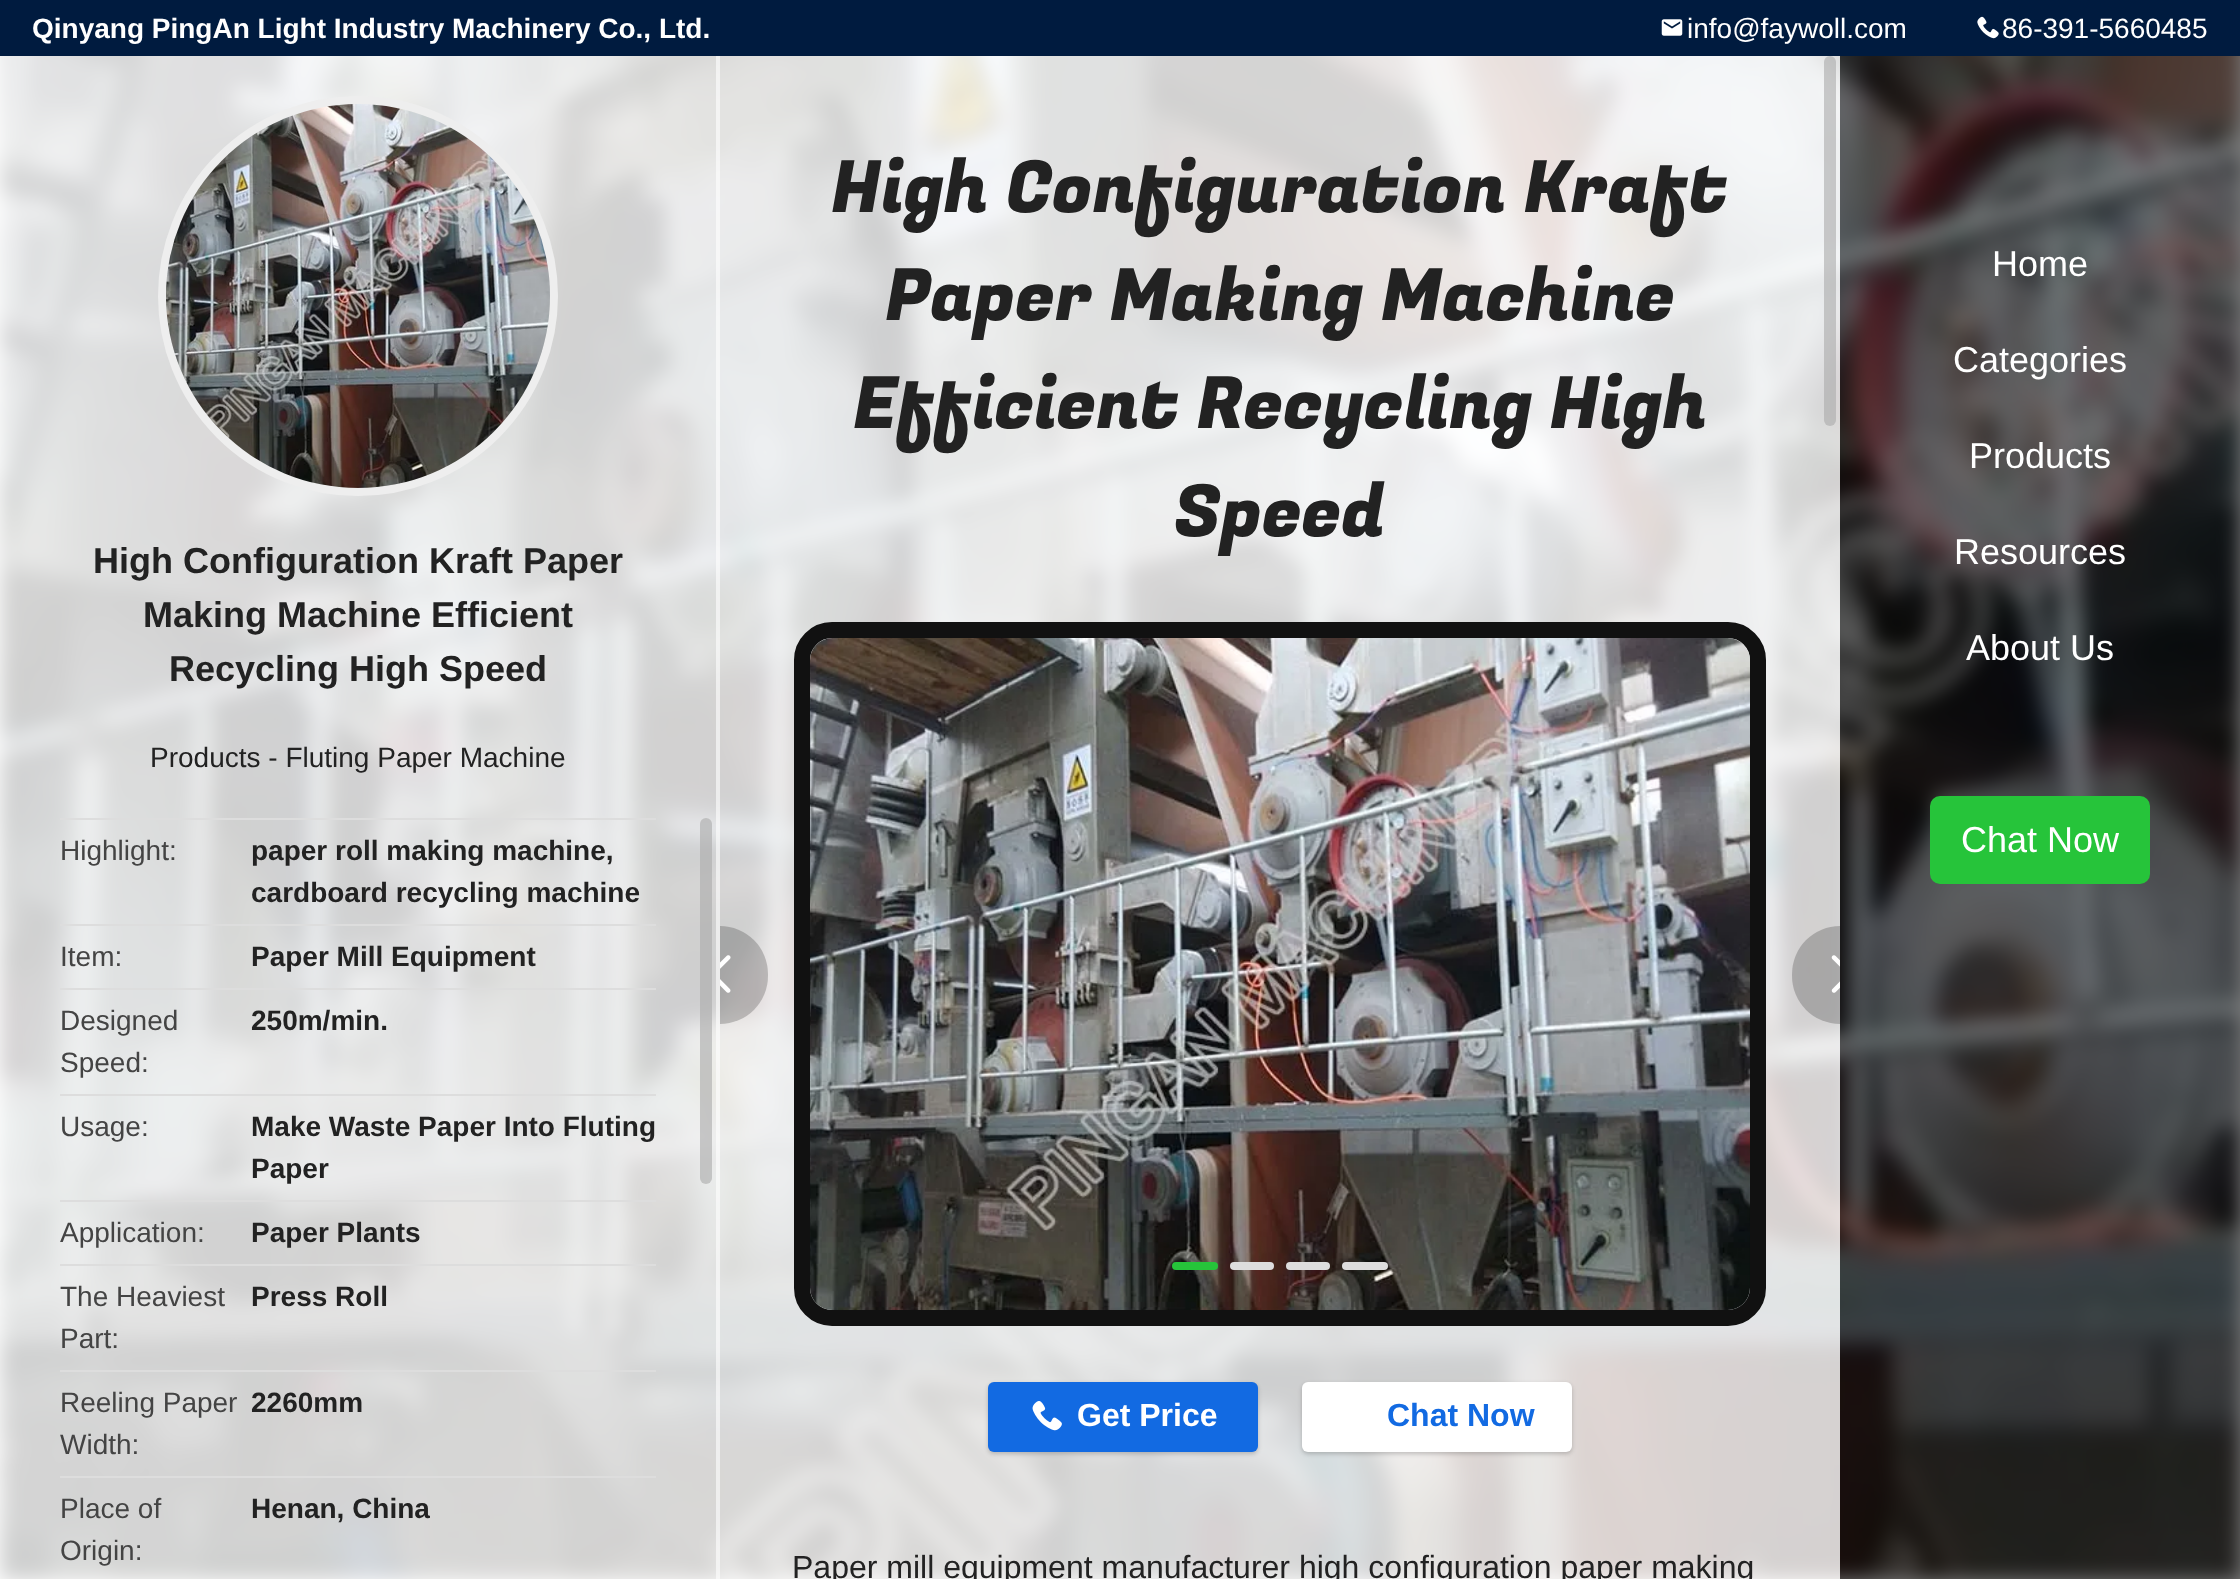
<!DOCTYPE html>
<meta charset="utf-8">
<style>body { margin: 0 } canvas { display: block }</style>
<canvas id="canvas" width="2240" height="1579"></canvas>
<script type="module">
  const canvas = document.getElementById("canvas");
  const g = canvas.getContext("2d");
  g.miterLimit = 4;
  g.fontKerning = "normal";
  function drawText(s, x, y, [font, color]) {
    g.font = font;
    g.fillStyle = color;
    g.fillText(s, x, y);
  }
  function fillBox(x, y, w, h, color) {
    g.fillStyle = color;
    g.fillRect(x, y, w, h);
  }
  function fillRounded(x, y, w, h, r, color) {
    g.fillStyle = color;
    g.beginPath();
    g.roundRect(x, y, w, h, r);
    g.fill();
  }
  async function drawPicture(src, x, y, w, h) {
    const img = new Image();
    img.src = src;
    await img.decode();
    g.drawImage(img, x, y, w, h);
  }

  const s1 = ["bold 28px Liberation Sans", "#FFFFFF"];
  const s2 = ["28px Liberation Sans", "#FFFFFF"];
  const s3 = ["bold 36px Liberation Sans", "#222222"];
  const s4 = ["28px Liberation Sans", "#222222"];
  const s5 = ["28px Liberation Sans", "#444444"];
  const s6 = ["bold 28px Liberation Sans", "#222222"];
  const s7 = ["72px Fugaz One", "#222222"];
  const s8 = ["bold 32px Liberation Sans", "#FFFFFF"];
  const s9 = ["bold 32px Liberation Sans", "#126AE2"];
  const s10 = ["32px Liberation Sans", "#222222"];
  const s11 = ["36px Liberation Sans", "#FFFFFF"];

  fillBox(0, 0, 2240, 1579, "#FFFFFF");
  fillBox(0, 0, 2240, 56, "#001B3F");
  drawText("Qinyang PingAn Light Industry Machinery Co., Ltd.", 32, 38, s1);
  await drawPicture("pic1.png", 1661, 19, 22, 17);
  drawText("info@faywoll.com", 1687, 38, s2);
  await drawPicture("pic2.png", 1977, 16, 22, 23);
  drawText("86-391-5660485", 2002, 38, s2);
  await drawPicture("pic3.png", 0, 56, 2240, 1523);
  fillBox(0, 56, 720, 1523, "rgba(255, 255, 255, 0.8)");
  fillBox(716, 56, 4, 1523, "rgba(255, 255, 255, 0.6)");
  g.beginPath();
  g.arc(358, 296, 196, 0, Math.PI * 2);
  g.strokeStyle = "#EEEEEE";
  g.lineWidth = 8;
  g.stroke();
  await drawPicture("pic4.png", 166, 104, 384, 384);
  drawText("High Configuration Kraft Paper", 93, 573, s3);
  drawText("Making Machine Efficient", 143, 627, s3);
  drawText("Recycling High Speed", 169, 681, s3);
  drawText("Products - Fluting Paper Machine", 150, 767, s4);
  fillBox(60, 818, 596, 2, "#DDDDDD");
  drawText("Highlight:", 60, 860, s5);
  drawText("paper roll making machine,", 251, 860, s6);
  drawText("cardboard recycling machine", 251, 902, s6);
  fillBox(60, 924, 596, 2, "#DDDDDD");
  drawText("Item:", 60, 966, s5);
  drawText("Paper Mill Equipment", 251, 966, s6);
  fillBox(60, 988, 596, 2, "#DDDDDD");
  drawText("Designed", 60, 1030, s5);
  drawText("Speed:", 60, 1072, s5);
  drawText("250m/min.", 251, 1030, s6);
  fillBox(60, 1094, 596, 2, "#DDDDDD");
  drawText("Usage:", 60, 1136, s5);
  drawText("Make Waste Paper Into Fluting", 251, 1136, s6);
  drawText("Paper", 251, 1178, s6);
  fillBox(60, 1200, 596, 2, "#DDDDDD");
  drawText("Application:", 60, 1242, s5);
  drawText("Paper Plants", 251, 1242, s6);
  fillBox(60, 1264, 596, 2, "#DDDDDD");
  drawText("The Heaviest", 60, 1306, s5);
  drawText("Part:", 60, 1348, s5);
  drawText("Press Roll", 251, 1306, s6);
  fillBox(60, 1370, 596, 2, "#DDDDDD");
  drawText("Reeling Paper", 60, 1412, s5);
  drawText("Width:", 60, 1454, s5);
  drawText("2260mm", 251, 1412, s6);
  fillBox(60, 1476, 596, 2, "#DDDDDD");
  drawText("Place of", 60, 1518, s5);
  drawText("Origin:", 60, 1560, s5);
  drawText("Henan, China", 251, 1518, s6);
  fillRounded(700, 818, 12, 366, 6, "rgba(170, 170, 170, 0.6)");
  fillBox(720, 56, 1120, 1523, "rgba(255, 255, 255, 0.8)");
  drawText("High Configuration Kraft", 831, 212, s7);
  drawText("Paper Making Machine", 885, 320, s7);
  drawText("Efficient Recycling High", 853, 428, s7);
  drawText("Speed", 1174, 536, s7);
  fillRounded(1824, 56, 12, 370, 6, "rgba(170, 170, 170, 0.6)");
  g.beginPath();
  g.roundRect(802, 630, 956, 688, 30);
  g.strokeStyle = "#111111";
  g.lineWidth = 16;
  g.stroke();
  await drawPicture("pic5.png", 810, 638, 940, 672);
  g.fillStyle = "rgba(0, 0, 0, 0.2)";
  g.beginPath();
  g.roundRect(720, 926, 48, 98, [0, 48, 48, 0]);
  g.fill();
  await drawPicture("pic6.png", 720, 955, 11, 38);
  g.beginPath();
  g.roundRect(1792, 926, 48, 98, [48, 0, 0, 48]);
  g.fill();
  await drawPicture("pic7.png", 1831, 955, 9, 38);
  fillRounded(1172, 1262, 46, 8, 4, "#26C43A");
  fillRounded(1230, 1262, 44, 8, 4, "#DDDDDD");
  fillRounded(1286, 1262, 44, 8, 4, "#DDDDDD");
  fillRounded(1342, 1262, 46, 8, 4, "#DDDDDD");
  g.fillStyle = "rgba(0, 0, 0, 0.2)";
  g.filter = "blur(2px)";
  g.beginPath();
  g.roundRect(988, 1384, 270, 70, 6);
  g.fill();
  g.filter = "none";
  fillRounded(988, 1382, 270, 70, 6, "#126AE2");
  await drawPicture("pic8.png", 1032, 1401, 30, 30);
  drawText("Get Price", 1077, 1426, s8);
  g.fillStyle = "rgba(0, 0, 0, 0.2)";
  g.filter = "blur(2px)";
  g.beginPath();
  g.roundRect(1302, 1384, 270, 70, 6);
  g.fill();
  g.filter = "none";
  fillRounded(1302, 1382, 270, 70, 6, "#FFFFFF");
  drawText("Chat Now", 1387, 1426, s9);
  drawText("Paper mill equipment manufacturer high configuration paper making", 792, 1578, s10);
  fillBox(1840, 56, 400, 1523, "rgba(0, 0, 0, 0.5)");
  drawText("Home", 1992, 276, s11);
  drawText("Categories", 1953, 372, s11);
  drawText("Products", 1969, 468, s11);
  drawText("Resources", 1954, 564, s11);
  drawText("About Us", 1966, 660, s11);
  fillRounded(1930, 796, 220, 88, 10, "#26C43A");
  drawText("Chat Now", 1961, 852, s11);
</script>
